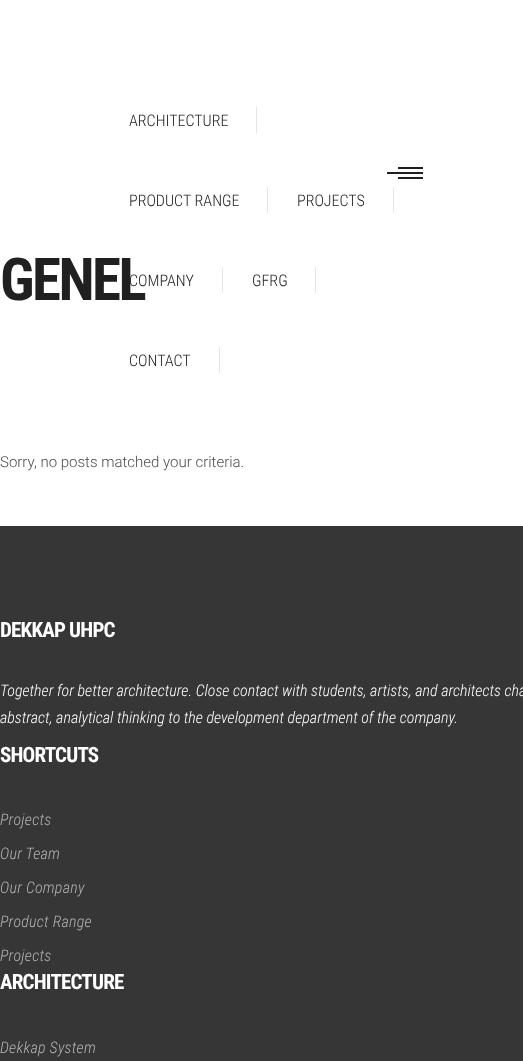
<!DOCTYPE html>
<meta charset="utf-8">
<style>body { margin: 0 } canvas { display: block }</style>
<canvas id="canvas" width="523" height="1061"></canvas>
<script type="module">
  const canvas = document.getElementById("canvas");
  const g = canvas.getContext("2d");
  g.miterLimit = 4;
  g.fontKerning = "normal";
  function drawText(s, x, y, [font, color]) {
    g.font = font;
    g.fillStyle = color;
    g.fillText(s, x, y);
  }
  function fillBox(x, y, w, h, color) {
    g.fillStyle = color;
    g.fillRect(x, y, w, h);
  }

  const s1 = ["bold 59px Roboto Condensed", "#202020"];
  const s2 = ["300 15px Roboto", "#4C4C4C"];
  const s3 = ["300 16px Roboto Condensed", "#202020"];
  const s4 = ["bold 21px Roboto Condensed", "#FFFFFF"];
  const s5 = ["italic 300 16px Roboto Condensed", "#FFFFFF"];
  const s6 = ["italic 300 16px Roboto Condensed", "#B1B2B2"];

  fillBox(0, 0, 523, 1061, "#FFFFFF");
  g.letterSpacing = "-2.5px";
  drawText("GENEL", 0, 300, s1);
  g.letterSpacing = "0px";
  drawText("Sorry, no posts matched your criteria.", 0, 467, s2);
  drawText("ARCHITECTURE", 129, 126, s3);
  fillBox(256, 107, 1, 26, "#E0E4F2");
  drawText("PRODUCT RANGE", 129, 206, s3);
  fillBox(267, 187, 1, 26, "#E0E4F2");
  drawText("PROJECTS", 297, 206, s3);
  fillBox(393, 187, 1, 26, "#E0E4F2");
  drawText("COMPANY", 129, 286, s3);
  fillBox(222, 267, 1, 26, "#E0E4F2");
  drawText("GFRG", 252, 286, s3);
  fillBox(315, 267, 1, 26, "#E0E4F2");
  drawText("CONTACT", 129, 366, s3);
  fillBox(219, 347, 1, 26, "#E0E4F2");
  fillBox(398, 167, 25, 2, "#202020");
  fillBox(387, 172, 36, 2, "#202020");
  fillBox(398, 177, 25, 2, "#202020");
  fillBox(0, 526, 523, 535, "#363636");
  g.letterSpacing = "-0.8px";
  drawText("DEKKAP UHPC", 0, 637, s4);
  g.letterSpacing = "0px";
  drawText("Together for better architecture. Close contact with students, artists, and architects cha", 0, 696, s5);
  drawText("abstract, analytical thinking to the development department of the company.", 0, 723, s5);
  g.letterSpacing = "-0.8px";
  drawText("SHORTCUTS", 0, 762, s4);
  g.letterSpacing = "0.25px";
  drawText("Projects", 0, 825, s6);
  drawText("Our Team", 0, 859, s6);
  drawText("Our Company", 0, 893, s6);
  drawText("Product Range", 0, 927, s6);
  drawText("Projects", 0, 961, s6);
  g.letterSpacing = "-0.8px";
  drawText("ARCHITECTURE", 0, 989, s4);
  g.letterSpacing = "0.25px";
  drawText("Dekkap System", 0, 1053, s6);
</script>
